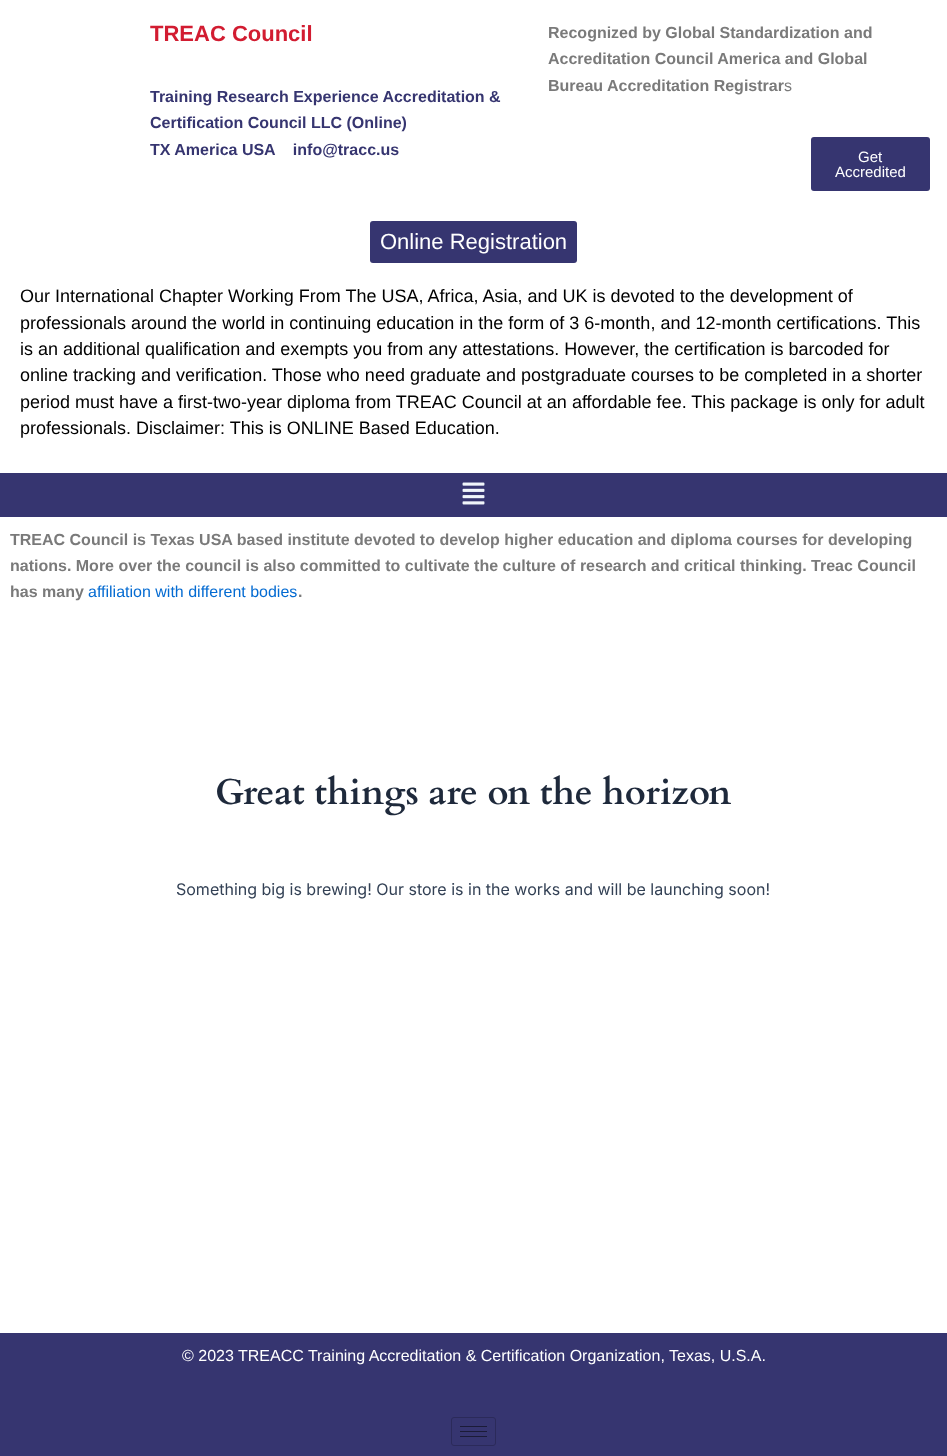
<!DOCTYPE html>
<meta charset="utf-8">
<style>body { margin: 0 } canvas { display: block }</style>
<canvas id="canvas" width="947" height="1456"></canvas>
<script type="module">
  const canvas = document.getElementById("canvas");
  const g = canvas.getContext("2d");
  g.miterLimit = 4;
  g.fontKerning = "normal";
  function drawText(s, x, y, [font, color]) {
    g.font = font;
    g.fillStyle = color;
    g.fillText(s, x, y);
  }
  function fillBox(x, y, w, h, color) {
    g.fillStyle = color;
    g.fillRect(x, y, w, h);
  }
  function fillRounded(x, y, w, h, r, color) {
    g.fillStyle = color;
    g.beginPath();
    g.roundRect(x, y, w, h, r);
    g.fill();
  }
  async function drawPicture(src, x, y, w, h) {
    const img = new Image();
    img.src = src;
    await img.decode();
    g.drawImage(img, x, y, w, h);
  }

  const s1 = ["bold 22px Liberation Sans", "#D21C31"];
  const s2 = ["bold 16px Liberation Sans", "#363570"];
  const s3 = ["bold 16px Liberation Sans", "#7A7A7A"];
  const s4 = ["16px Liberation Sans", "#7A7A7A"];
  const s5 = ["15px Liberation Sans", "#FFFFFF"];
  const s6 = ["22px Liberation Sans", "#FFFFFF"];
  const s7 = ["18px Liberation Sans", "#000000"];
  const s8 = ["16px Liberation Sans", "#046BD2"];
  const s9 = ["bold 36px Cardo", "#1E293B"];
  const s10 = ["16px Inter", "#334155"];
  const s11 = ["16px Liberation Sans", "#FFFFFF"];

  fillBox(0, 0, 947, 1456, "#FFFFFF");
  drawText("TREAC Council", 150, 41, s1);
  drawText("Training Research Experience Accreditation &", 150, 102, s2);
  drawText("Certification Council LLC (Online)", 150, 128, s2);
  drawText("TX America USA    info@tracc.us", 150, 155, s2);
  drawText("Recognized by Global Standardization and", 548, 38, s3);
  drawText("Accreditation Council America and Global", 548, 64, s3);
  drawText("Bureau Accreditation Registrar", 548, 91, s3);
  drawText("s", 784, 91, s4);
  fillRounded(811, 137, 119, 54, 3, "#363570");
  drawText("Get", 858, 162, s5);
  drawText("Accredited", 835, 177, s5);
  fillRounded(370, 221, 207, 42, 3, "#363570");
  drawText("Online Registration", 380, 249, s6);
  drawText("Our International Chapter Working From The USA, Africa, Asia, and UK is devoted to the development of", 20, 302, s7);
  drawText("professionals around the world in continuing education in the form of 3 6-month, and 12-month certifications. This", 20, 329, s7);
  drawText("is an additional qualification and exempts you from any attestations. However, the certification is barcoded for", 20, 355, s7);
  drawText("online tracking and verification. Those who need graduate and postgraduate courses to be completed in a shorter", 20, 381, s7);
  drawText("period must have a first-two-year diploma from TREAC Council at an affordable fee. This package is only for adult", 20, 408, s7);
  drawText("professionals. Disclaimer: This is ONLINE Based Education.", 20, 434, s7);
  fillBox(0, 473, 947, 44, "#363570");
  await drawPicture("pic1.png", 462, 482, 23, 23);
  drawText("TREAC Council is Texas USA based institute devoted to develop higher education and diploma courses for developing", 10, 545, s3);
  drawText("nations. More over the council is also committed to cultivate the culture of research and critical thinking. Treac Council", 10, 571, s3);
  drawText("has many", 10, 597, s3);
  drawText("affiliation with different bodies", 88, 597, s8);
  drawText(".", 298, 597, s3);
  drawText("Great things are on the horizon", 215, 804, s9);
  drawText("Something big is brewing! Our store is in the works and will be launching soon!", 176, 895, s10);
  fillBox(0, 1333, 947, 123, "#363570");
  drawText("© 2023 TREACC Training Accreditation & Certification Organization, Texas, U.S.A.", 182, 1361, s11);
  g.beginPath();
  g.roundRect(451.5, 1417.5, 44, 28, 2.5);
  g.strokeStyle = "#2B2A5A";
  g.stroke();
  fillBox(460, 1426, 27, 1, "#1B1B38");
  fillBox(460, 1431, 27, 1, "#1B1B38");
  fillBox(460, 1436, 27, 1, "#1B1B38");
</script>
